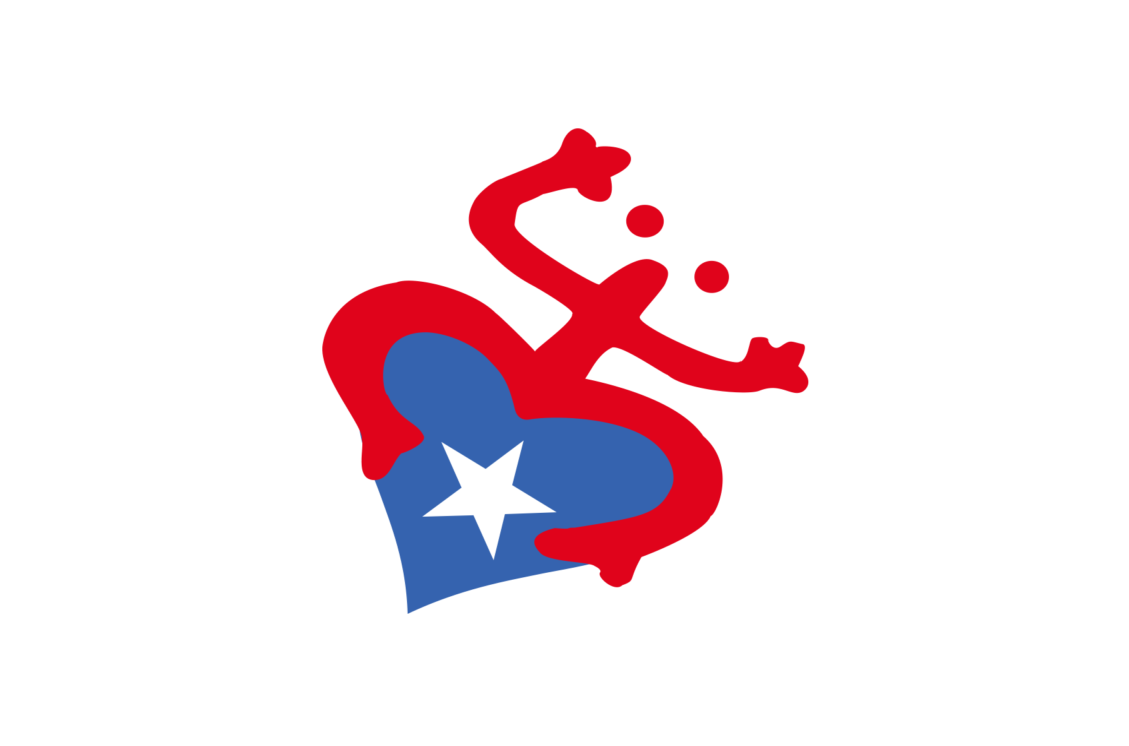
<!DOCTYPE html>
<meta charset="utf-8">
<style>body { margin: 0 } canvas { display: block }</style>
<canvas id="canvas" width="1129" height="746"></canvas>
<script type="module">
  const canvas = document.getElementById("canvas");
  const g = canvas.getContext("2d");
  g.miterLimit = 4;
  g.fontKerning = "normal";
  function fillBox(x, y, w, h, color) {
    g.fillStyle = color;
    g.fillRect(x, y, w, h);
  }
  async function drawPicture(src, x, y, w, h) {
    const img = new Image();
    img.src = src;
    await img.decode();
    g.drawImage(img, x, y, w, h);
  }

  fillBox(0, 0, 1129, 746, "#FFFFFF");
  await drawPicture("pic1.png", 322, 128, 487, 486);
</script>
